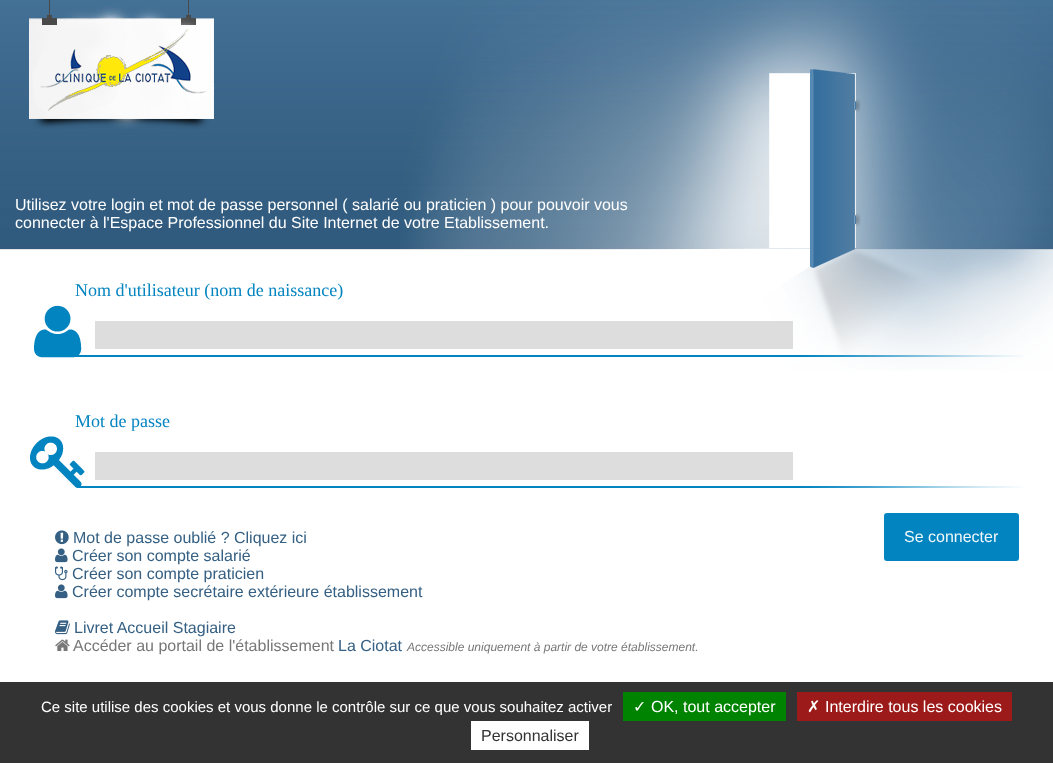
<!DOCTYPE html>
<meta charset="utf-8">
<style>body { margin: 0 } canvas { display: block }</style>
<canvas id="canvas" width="1053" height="763"></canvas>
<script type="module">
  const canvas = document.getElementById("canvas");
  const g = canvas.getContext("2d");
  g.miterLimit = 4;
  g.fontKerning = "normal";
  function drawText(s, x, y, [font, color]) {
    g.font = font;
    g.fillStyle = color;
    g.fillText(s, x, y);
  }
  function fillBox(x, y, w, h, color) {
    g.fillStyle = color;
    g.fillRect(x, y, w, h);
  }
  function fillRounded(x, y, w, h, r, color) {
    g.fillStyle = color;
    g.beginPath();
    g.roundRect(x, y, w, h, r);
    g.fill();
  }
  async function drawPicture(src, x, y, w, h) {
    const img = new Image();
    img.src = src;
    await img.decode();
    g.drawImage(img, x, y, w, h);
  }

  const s1 = ["16px Liberation Sans", "#FFFFFF"];
  const s2 = ["18px Liberation Serif", "#0284C0"];
  const s3 = ["16px Liberation Sans", "#356083"];
  const s4 = ["16px Liberation Sans", "#777777"];
  const s5 = ["italic 12px Liberation Sans", "#777777"];
  const s6 = ["16px Liberation Sans", "#F2F8FA"];
  const s7 = ["15px Liberation Sans", "#FFFFFF"];
  const s8 = ["16px DejaVu Sans", "#FFFFFF"];
  const s9 = ["16px Liberation Sans", "#333333"];

  fillBox(0, 0, 1053, 763, "#FFFFFF");
  await drawPicture("pic1.png", 0, 0, 1053, 250);
  await drawPicture("pic2.png", 29, 0, 186, 129);
  drawText("Utilisez votre login et mot de passe personnel ( salarié ou praticien ) pour pouvoir vous", 15, 210, s1);
  drawText("connecter à l'Espace Professionnel du Site Internet de votre Etablissement.", 15, 228, s1);
  await drawPicture("pic3.png", 400, 0, 653, 371);
  drawText("Nom d'utilisateur (nom de naissance)", 75, 296, s2);
  await drawPicture("pic4.png", 34, 305, 61, 53);
  fillBox(95, 355, 694, 2, "#0284C0");
  fillBox(95, 321, 698, 28, "#DDDDDD");
  await drawPicture("pic5.png", 789, 355, 234, 2);
  drawText("Mot de passe", 75, 427, s2);
  await drawPicture("pic6.png", 30, 436, 65, 52);
  fillBox(95, 486, 694, 2, "#0284C0");
  fillBox(95, 452, 698, 28, "#DDDDDD");
  await drawPicture("pic7.png", 789, 486, 234, 2);
  await drawPicture("pic8.png", 55, 530, 14, 15);
  drawText("Mot de passe oublié ? Cliquez ici", 73, 543, s3);
  await drawPicture("pic9.png", 55, 548, 13, 15);
  drawText("Créer son compte salarié", 72, 561, s3);
  await drawPicture("pic10.png", 55, 566, 13, 15);
  drawText("Créer son compte praticien", 72, 579, s3);
  await drawPicture("pic9.png", 55, 584, 13, 15);
  drawText("Créer compte secrétaire extérieure établissement", 72, 597, s3);
  await drawPicture("pic11.png", 55, 620, 15, 15);
  drawText("Livret Accueil Stagiaire", 74, 633, s3);
  await drawPicture("pic12.png", 55, 639, 15, 12);
  drawText("Accéder au portail de l'établissement", 73, 651, s4);
  drawText("La Ciotat", 338, 651, s3);
  drawText("Accessible uniquement à partir de votre établissement.", 407, 651, s5);
  fillRounded(884, 513, 135, 48, 3, "#0284C0");
  drawText("Se connecter", 904, 542, s6);
  fillBox(0, 682, 1053, 81, "#333333");
  drawText("Ce site utilise des cookies et vous donne le contrôle sur ce que vous souhaitez activer", 41, 712, s7);
  fillBox(623, 692, 163, 29, "#008300");
  drawText("✓", 633, 712, s8);
  drawText("OK, tout accepter", 651, 712, s1);
  fillBox(797, 692, 215, 29, "#9C1A1A");
  drawText("✗", 807, 712, s8);
  drawText("Interdire tous les cookies", 825, 712, s1);
  fillBox(471, 721, 118, 29, "#FFFFFF");
  drawText("Personnaliser", 481, 741, s9);
</script>
